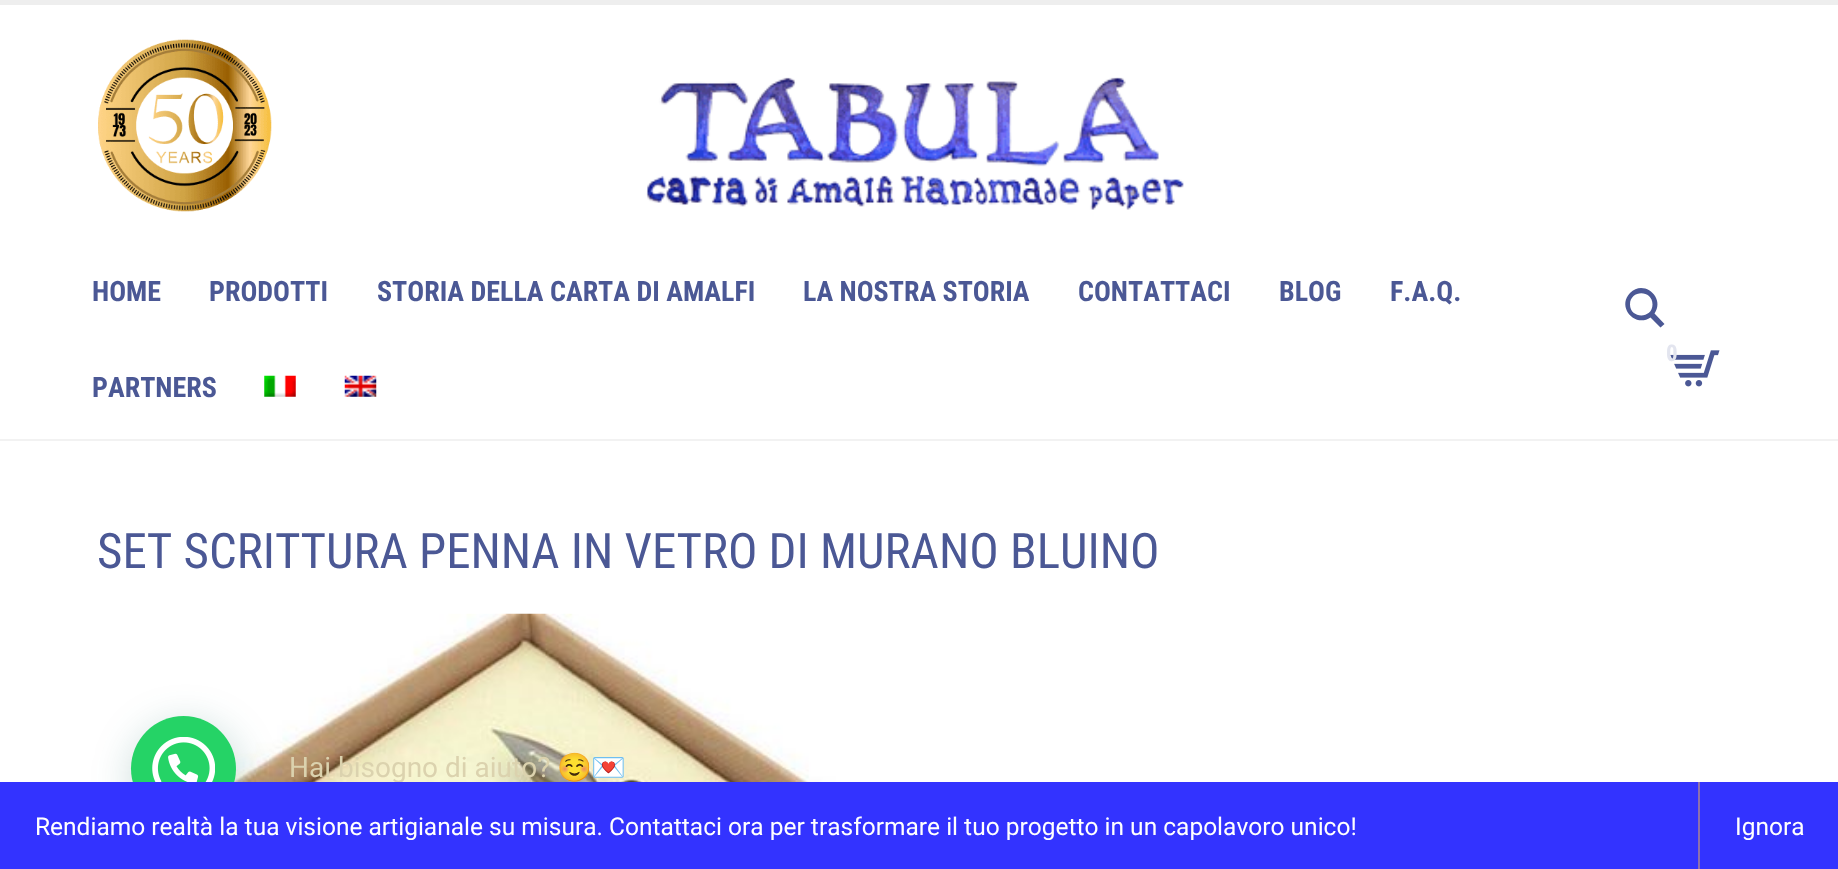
<!DOCTYPE html>
<meta charset="utf-8">
<style>body { margin: 0 } canvas { display: block }</style>
<canvas id="canvas" width="1838" height="869"></canvas>
<script type="module">
  const canvas = document.getElementById("canvas");
  const g = canvas.getContext("2d");
  g.miterLimit = 4;
  g.fontKerning = "none";
  function drawText(s, x, y, [font, color]) {
    g.font = font;
    g.fillStyle = color;
    g.fillText(s, x, y);
  }
  function fillBox(x, y, w, h, color) {
    g.fillStyle = color;
    g.fillRect(x, y, w, h);
  }
  async function drawPicture(src, x, y, w, h) {
    const img = new Image();
    img.src = src;
    await img.decode();
    g.drawImage(img, x, y, w, h);
  }

  const s1 = ["bold 28px Roboto Condensed", "#4B5895"];
  const s2 = ["bold 23px Roboto Condensed", "#E3E5EF"];
  const s3 = ["49px Roboto Condensed", "#4B5895"];
  const s4 = ["28px Roboto", "#DBD2AE"];
  const s5 = ["28px Noto Color Emoji", "#D8D2B5"];
  const s6 = ["24.5px Roboto", "#FFFFFF"];

  fillBox(0, 0, 1838, 869, "#FFFFFF");
  fillBox(0, 439, 1838, 2, "#F2F2F2");
  fillBox(0, 0, 1838, 5, "#EEEEEE");
  await drawPicture("pic1.png", 98, 39, 174, 173);
  await drawPicture("pic2.png", 646, 77, 538, 133);
  drawText("HOME", 92, 301, s1);
  drawText("PRODOTTI", 209, 301, s1);
  drawText("STORIA DELLA CARTA DI AMALFI", 377, 301, s1);
  drawText("LA NOSTRA STORIA", 803, 301, s1);
  drawText("CONTATTACI", 1078, 301, s1);
  drawText("BLOG", 1279, 301, s1);
  drawText("F.A.Q.", 1390, 301, s1);
  drawText("PARTNERS", 92, 397, s1);
  await drawPicture("pic3.png", 264, 375, 32, 22);
  await drawPicture("pic4.png", 344, 375, 33, 22);
  g.beginPath();
  g.moveTo(1664.5, 324);
  g.lineTo(1654.5, 313.5);
  g.bezierCurveTo(1665.5, 298, 1644, 279, 1630, 293);
  g.bezierCurveTo(1616.5, 307, 1635, 328, 1650.5, 317.5);
  g.lineTo(1660.5, 327.5);
  g.closePath();
  g.moveTo(1630, 304.5);
  g.bezierCurveTo(1630, 289.5, 1652.5, 289.5, 1652.5, 304.5);
  g.bezierCurveTo(1652.5, 319, 1630, 319, 1630, 304.5);
  g.closePath();
  g.fill();
  await drawPicture("pic5.png", 1670, 350, 50, 37);
  drawText("0", 1666, 361, s2);
  drawText("SET SCRITTURA PENNA IN VETRO DI MURANO BLUINO", 97, 568, s3);
  await drawPicture("pic6.png", 98, 613, 1645, 169);
  g.fillStyle = "rgba(7, 94, 84, 0.24)";
  g.filter = "blur(21px)";
  g.beginPath();
  g.roundRect(133, 726, 105, 105, 52.5);
  g.fill();
  g.filter = "none";
  g.fillStyle = "#25D366";
  g.beginPath();
  g.arc(183.5, 768.5, 52.5, 0, Math.PI * 2);
  g.fill();
  await drawPicture("pic7.png", 152, 737, 63, 45);
  drawText("Hai bisogno di aiuto?", 289, 777, s4);
  drawText("☺️💌", 557, 777, s5);
  fillBox(0, 782, 1838, 87, "#3333FF");
  drawText("Rendiamo realtà la tua visione artigianale su misura. Contattaci ora per trasformare il tuo progetto in un capolavoro unico!", 35, 835, s6);
  fillBox(1698, 782, 2, 87, "#8F70AD");
  drawText("Ignora", 1735, 835, s6);
</script>
